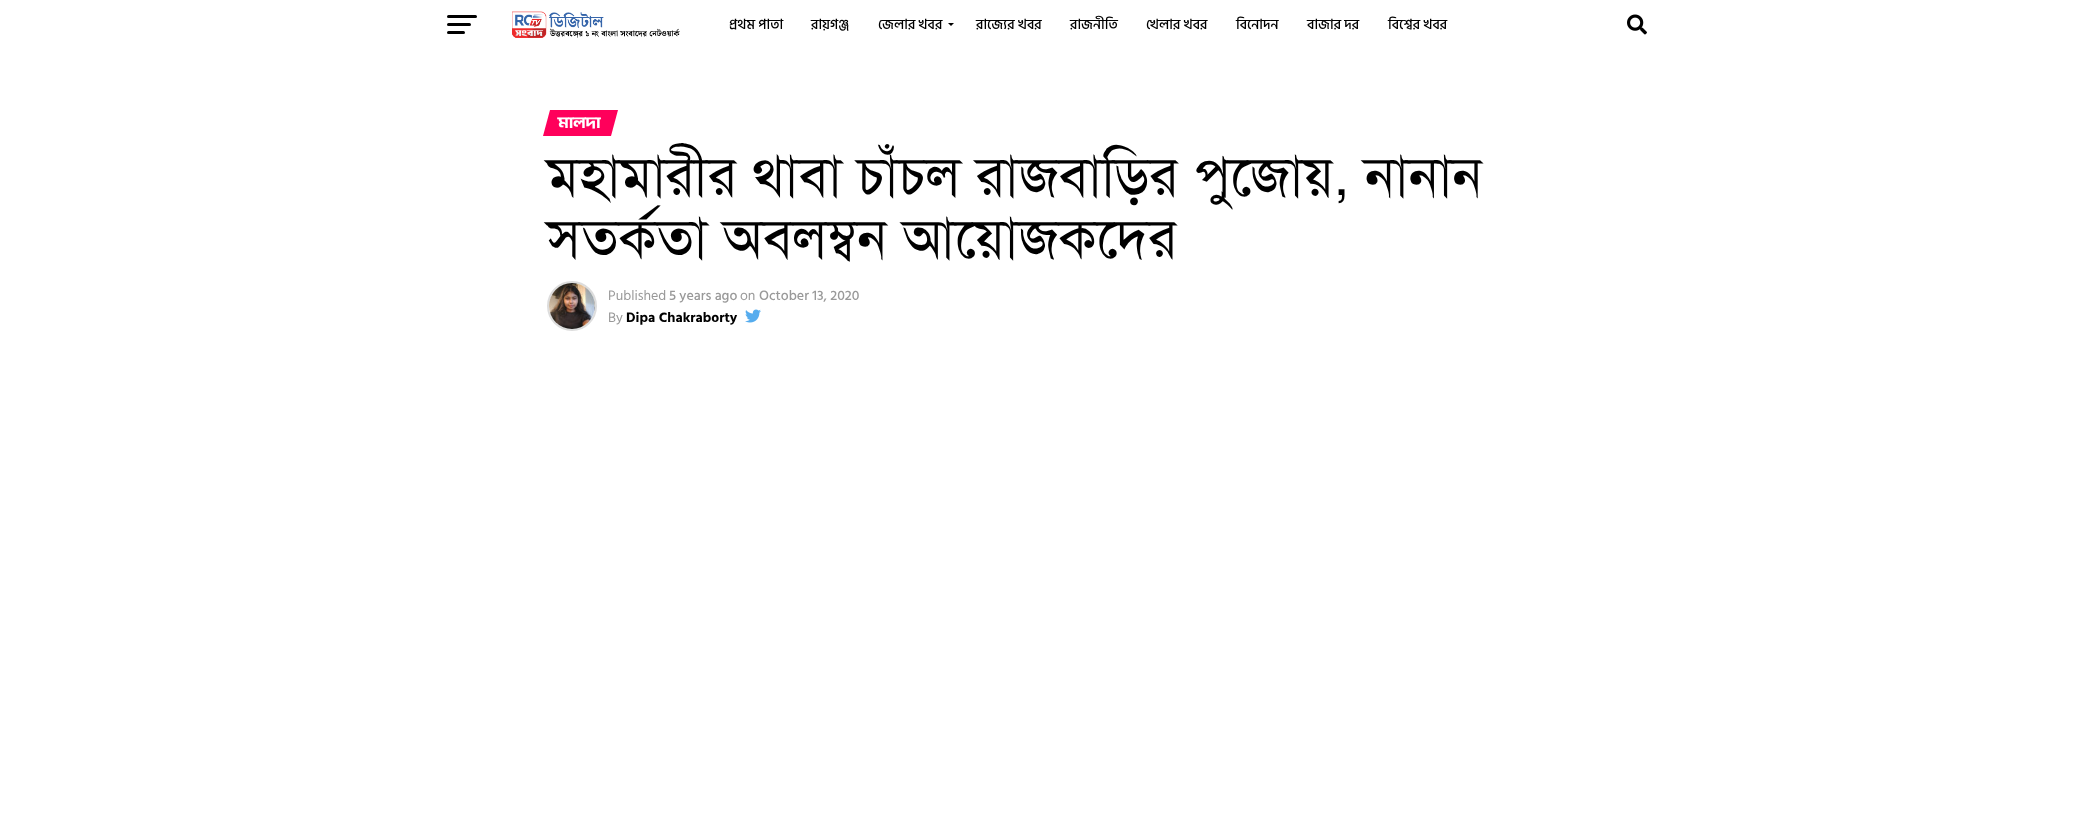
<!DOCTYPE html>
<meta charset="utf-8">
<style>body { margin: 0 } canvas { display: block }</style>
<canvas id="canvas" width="2093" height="816"></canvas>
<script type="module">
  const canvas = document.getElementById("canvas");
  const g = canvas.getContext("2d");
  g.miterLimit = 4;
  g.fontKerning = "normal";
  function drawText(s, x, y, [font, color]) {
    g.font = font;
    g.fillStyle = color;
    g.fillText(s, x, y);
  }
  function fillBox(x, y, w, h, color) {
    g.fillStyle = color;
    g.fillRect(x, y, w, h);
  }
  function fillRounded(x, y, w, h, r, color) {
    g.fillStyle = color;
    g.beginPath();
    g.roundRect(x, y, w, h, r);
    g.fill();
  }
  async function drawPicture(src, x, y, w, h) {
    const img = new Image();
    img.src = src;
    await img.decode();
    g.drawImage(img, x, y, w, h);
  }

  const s1 = ["500 14px Hind Siliguri", "#000000"];
  const s2 = ["bold 16.5px Anek Bangla", "#FFFFFF"];
  const s3 = ["56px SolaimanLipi", "#000000"];
  const s4 = ["14px Hind Siliguri", "#999999"];
  const s5 = ["500 14px Hind Siliguri", "#999999"];
  const s6 = ["bold 14px Hind Siliguri", "#000000"];

  fillBox(0, 0, 2093, 816, "#FFFFFF");
  fillRounded(447, 15, 30, 3, 1.5, "#000000");
  fillRounded(447, 23, 24, 3, 1.5, "#000000");
  fillRounded(447, 31, 18, 3, 1.5, "#000000");
  await drawPicture("pic1.png", 512, 11, 168, 27);
  drawText("প্রথম পাতা", 729, 29, s1);
  drawText("রায়গঞ্জ", 811, 29, s1);
  drawText("জেলার খবর", 878, 29, s1);
  g.beginPath();
  g.moveTo(948, 23);
  g.lineTo(954, 23);
  g.lineTo(951, 26);
  g.closePath();
  g.fill();
  drawText("রাজ্যের খবর", 976, 29, s1);
  drawText("রাজনীতি", 1070, 29, s1);
  drawText("খেলার খবর", 1146, 29, s1);
  drawText("বিনোদন", 1236, 29, s1);
  drawText("বাজার দর", 1307, 29, s1);
  drawText("বিশ্বের খবর", 1388, 29, s1);
  await drawPicture("pic2.png", 1627, 14, 20, 21);
  g.fillStyle = "#FF005B";
  g.beginPath();
  g.moveTo(550, 110);
  g.lineTo(618, 110);
  g.lineTo(611, 136);
  g.lineTo(543, 136);
  g.closePath();
  g.fill();
  g.letterSpacing = "-0.5px";
  drawText("মালদা", 558, 128, s2);
  g.letterSpacing = "0px";
  drawText("মহামারীর থাবা চাঁচল রাজবাড়ির পুজোয়, নানান", 547, 195, s3);
  drawText("সতর্কতা অবলম্বন আয়োজকদের", 547, 257, s3);
  g.beginPath();
  g.arc(572, 306, 24, 0, Math.PI * 2);
  g.strokeStyle = "#DDDDDD";
  g.lineWidth = 2;
  g.stroke();
  await drawPicture("pic3.png", 549, 283, 46, 46);
  drawText("Published", 608, 300, s4);
  drawText("5 years ago", 669, 300, s5);
  drawText("on", 740, 300, s4);
  drawText("October 13, 2020", 759, 300, s5);
  drawText("By", 608, 322, s4);
  drawText("Dipa Chakraborty", 626, 322, s6);
  await drawPicture("pic4.png", 745, 309, 16, 14);
</script>
